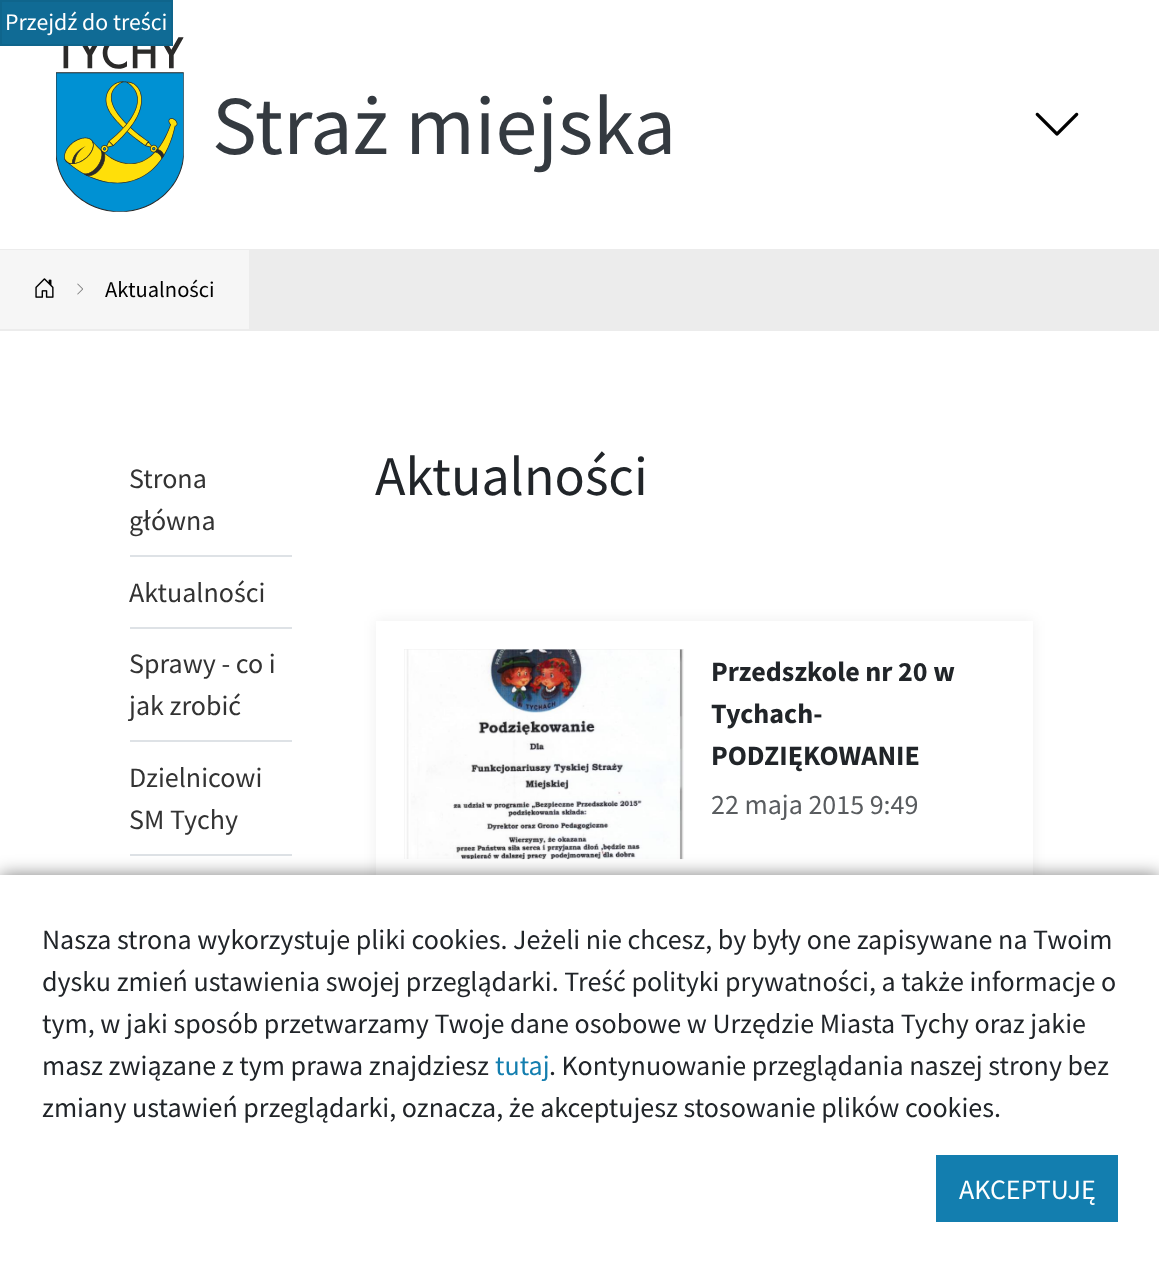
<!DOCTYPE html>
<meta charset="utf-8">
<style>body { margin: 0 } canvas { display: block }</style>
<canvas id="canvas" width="1159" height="1262"></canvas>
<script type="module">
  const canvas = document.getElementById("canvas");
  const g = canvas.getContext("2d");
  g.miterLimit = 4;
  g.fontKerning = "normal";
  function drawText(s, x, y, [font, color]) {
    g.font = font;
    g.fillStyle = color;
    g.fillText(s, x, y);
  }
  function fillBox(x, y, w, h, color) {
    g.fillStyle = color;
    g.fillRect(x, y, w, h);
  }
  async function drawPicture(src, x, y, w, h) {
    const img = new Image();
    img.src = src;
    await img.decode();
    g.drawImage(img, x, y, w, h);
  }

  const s1 = ["23.75px Source Sans Pro", "#FFFFFF"];
  const s2 = ["84px Source Sans Pro", "#343A40"];
  const s3 = ["22.5px Source Sans Pro", "#000000"];
  const s4 = ["28px Source Sans Pro", "#333333"];
  const s5 = ["56px Source Sans Pro", "#212529"];
  const s6 = ["bold 28px Source Sans Pro", "#212529"];
  const s7 = ["28px Source Sans Pro", "#595C5F"];
  const s8 = ["28px Source Sans Pro", "#212529"];
  const s9 = ["28px Source Sans Pro", "#137EAF"];
  const s10 = ["28px Source Sans Pro", "#FFFFFF"];

  fillBox(0, 0, 1159, 1262, "#ECECEC");
  fillBox(0, 0, 1159, 249, "#FFFFFF");
  await drawPicture("pic1.png", 56, 37, 128, 175);
  g.fillStyle = "#106B95";
  g.beginPath();
  g.rect(1, 1, 171, 44);
  g.fill();
  g.strokeStyle = "#0F658C";
  g.lineWidth = 2;
  g.stroke();
  drawText("Przejdź do treści", 5, 30, s1);
  drawText("Straż miejska", 212, 154, s2);
  await drawPicture("pic2.png", 1035, 112, 44, 24);
  fillBox(0, 250, 249, 79, "#F6F6F6");
  await drawPicture("pic3.png", 35, 278, 19, 20);
  await drawPicture("pic4.png", 77, 283, 6, 12);
  drawText("Aktualności", 105, 297, s3);
  fillBox(0, 331, 1159, 544, "#FFFFFF");
  fillBox(130, 555, 162, 2, "#DEE2E6");
  drawText("Strona", 129, 488, s4);
  drawText("główna", 129, 530, s4);
  fillBox(130, 627, 162, 2, "#DEE2E6");
  drawText("Aktualności", 129, 602, s4);
  fillBox(130, 740, 162, 2, "#DEE2E6");
  drawText("Sprawy - co i", 129, 673, s4);
  drawText("jak zrobić", 129, 715, s4);
  fillBox(130, 854, 162, 2, "#DEE2E6");
  drawText("Dzielnicowi", 129, 787, s4);
  drawText("SM Tychy", 129, 829, s4);
  drawText("Aktualności", 375, 495, s5);
  g.fillStyle = "rgba(0, 0, 0, 0.07)";
  g.filter = "blur(7px)";
  g.beginPath();
  g.rect(376, 621, 657, 266);
  g.fill();
  g.filter = "none";
  fillBox(376, 621, 657, 254, "#FFFFFF");
  fillBox(404, 649, 280, 210, "#EEEEEE");
  await drawPicture("pic5.png", 404, 649, 280, 211);
  drawText("Przedszkole nr 20 w", 711, 681, s6);
  drawText("Tychach-", 711, 723, s6);
  drawText("PODZIĘKOWANIE", 711, 765, s6);
  drawText("22 maja 2015 9:49", 711, 814, s7);
  g.fillStyle = "rgba(0, 0, 0, 0.5)";
  g.filter = "blur(9px)";
  g.beginPath();
  g.rect(0, 875, 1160, 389);
  g.fill();
  g.filter = "none";
  fillBox(0, 875, 1159, 387, "#FFFFFF");
  drawText("Nasza strona wykorzystuje pliki cookies. Jeżeli nie chcesz, by były one zapisywane na Twoim", 42, 949, s8);
  drawText("dysku zmień ustawienia swojej przeglądarki. Treść polityki prywatności, a także informacje o", 42, 991, s8);
  drawText("tym, w jaki sposób przetwarzamy Twoje dane osobowe w Urzędzie Miasta Tychy oraz jakie", 42, 1033, s8);
  drawText("masz związane z tym prawa znajdziesz", 42, 1075, s8);
  drawText("tutaj", 495, 1075, s9);
  drawText(". Kontynuowanie przeglądania naszej strony bez", 549, 1075, s8);
  drawText("zmiany ustawień przeglądarki, oznacza, że akceptujesz stosowanie plików cookies.", 42, 1117, s8);
  fillBox(936, 1155, 182, 67, "#137EAF");
  drawText("AKCEPTUJĘ", 959, 1199, s10);
</script>
